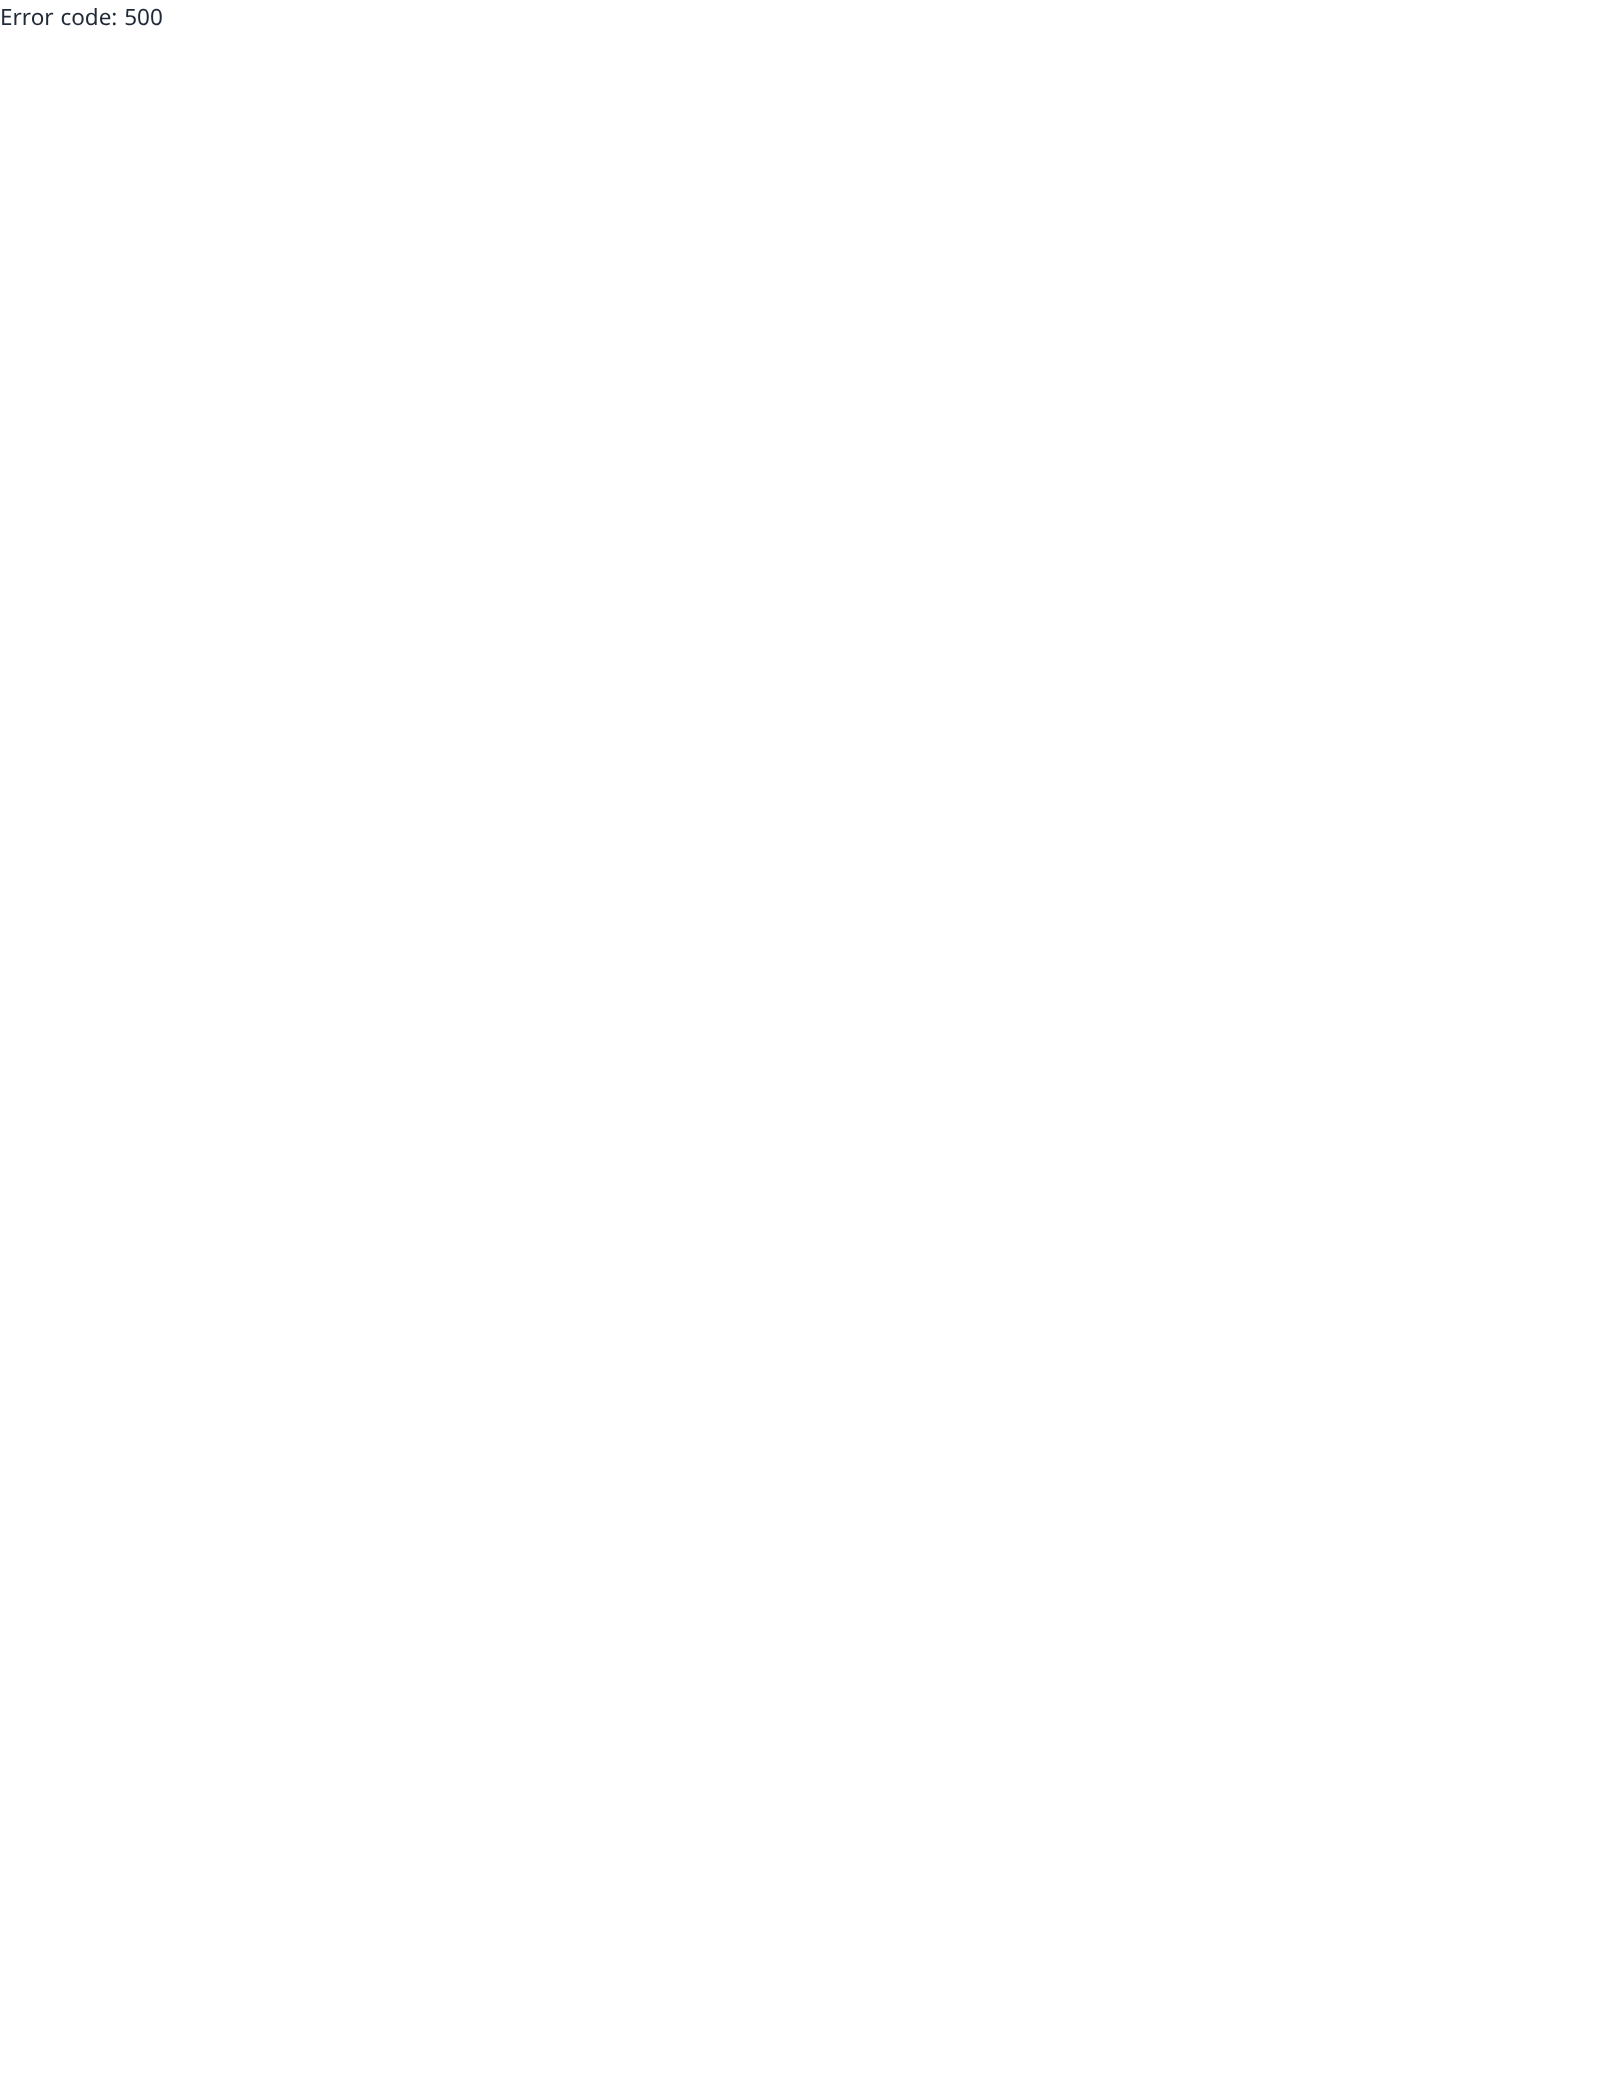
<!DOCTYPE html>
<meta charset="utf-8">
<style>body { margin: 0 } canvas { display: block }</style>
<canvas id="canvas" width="1601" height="2080"></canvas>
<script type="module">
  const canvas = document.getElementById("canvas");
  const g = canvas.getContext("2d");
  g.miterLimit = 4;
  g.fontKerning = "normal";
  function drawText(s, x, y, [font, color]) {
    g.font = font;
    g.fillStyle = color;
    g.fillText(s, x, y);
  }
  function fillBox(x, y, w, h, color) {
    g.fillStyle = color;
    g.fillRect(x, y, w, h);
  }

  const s1 = ["22.5px Noto Sans", "#1F2937"];

  fillBox(0, 0, 1601, 2080, "#FFFFFF");
  g.wordSpacing = "1px";
  drawText("Error code: 500", 0, 25, s1);
</script>
